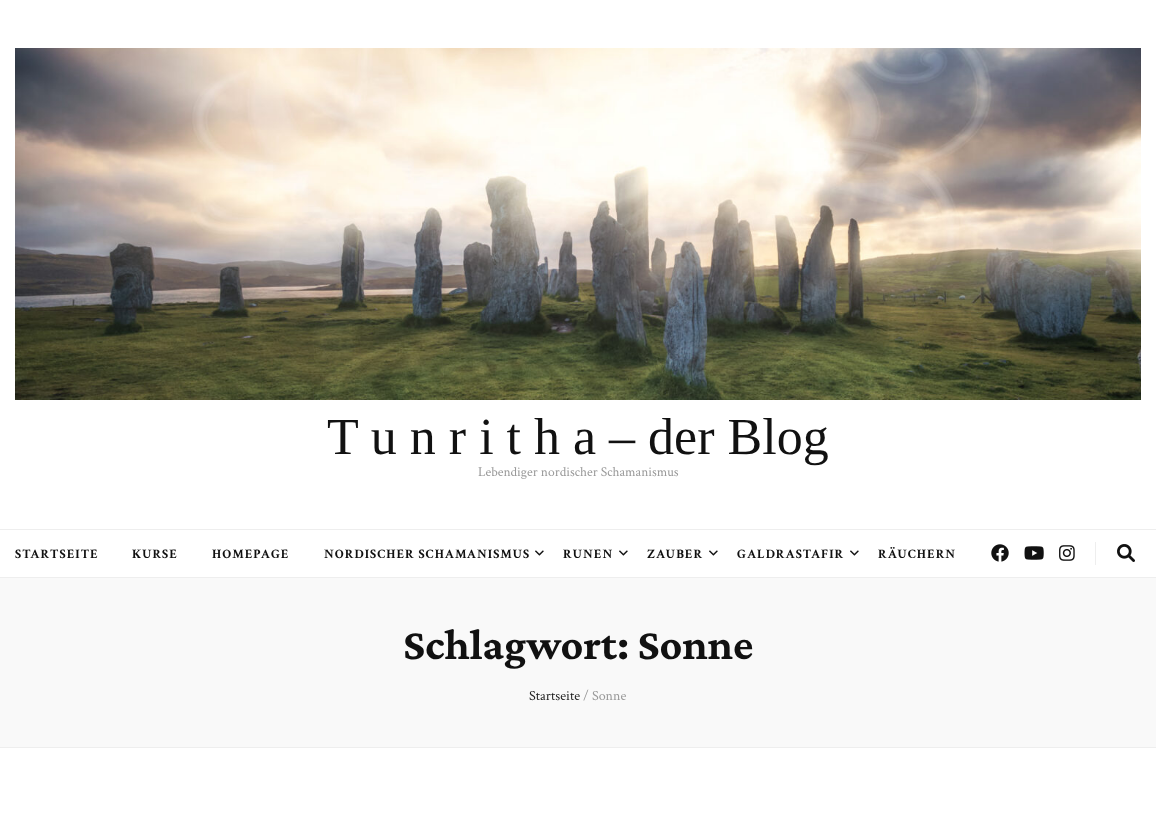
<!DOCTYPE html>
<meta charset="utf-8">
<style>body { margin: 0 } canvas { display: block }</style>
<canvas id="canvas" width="1156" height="816"></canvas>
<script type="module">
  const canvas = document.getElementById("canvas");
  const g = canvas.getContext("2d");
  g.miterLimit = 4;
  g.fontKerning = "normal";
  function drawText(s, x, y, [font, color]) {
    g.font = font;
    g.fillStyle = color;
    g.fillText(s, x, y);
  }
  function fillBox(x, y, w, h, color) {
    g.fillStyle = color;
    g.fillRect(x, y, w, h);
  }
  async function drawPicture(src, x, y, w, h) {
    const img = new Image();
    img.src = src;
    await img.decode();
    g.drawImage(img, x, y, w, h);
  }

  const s1 = ["52px Liberation Serif", "#111111"];
  const s2 = ["13.5px Crimson Text", "#999999"];
  const s3 = ["bold 13px Crimson Text", "#111111"];
  const s4 = ["bold 44px Crimson Pro", "#111111"];
  const s5 = ["14px Crimson Text", "#222222"];
  const s6 = ["14px Crimson Text", "#999999"];

  fillBox(0, 0, 1156, 816, "#FFFFFF");
  await drawPicture("pic1.png", 15, 48, 1126, 352);
  drawText("T u n r i t h a – der Blog", 327, 454, s1);
  drawText("Lebendiger nordischer Schamanismus", 478, 476, s2);
  fillBox(0, 529, 1156, 1, "#EEEEEE");
  fillBox(0, 577, 1156, 1, "#EEEEEE");
  g.letterSpacing = "1px";
  drawText("STARTSEITE", 15, 558, s3);
  drawText("KURSE", 132, 558, s3);
  drawText("HOMEPAGE", 212, 558, s3);
  drawText("NORDISCHER SCHAMANISMUS", 324, 558, s3);
  await drawPicture("pic2.png", 535, 550, 9, 6);
  drawText("RUNEN", 563, 558, s3);
  await drawPicture("pic2.png", 619, 550, 9, 6);
  drawText("ZAUBER", 647, 558, s3);
  await drawPicture("pic2.png", 709, 550, 9, 6);
  drawText("GALDRASTAFIR", 737, 558, s3);
  await drawPicture("pic2.png", 850, 550, 9, 6);
  drawText("RÄUCHERN", 878, 558, s3);
  await drawPicture("pic3.png", 991, 544, 18, 18);
  await drawPicture("pic4.png", 1024, 546, 20, 14);
  await drawPicture("pic5.png", 1059, 545, 16, 16);
  fillBox(1095, 542, 1, 23, "#EEEEEE");
  await drawPicture("pic6.png", 1117, 544, 18, 18);
  fillBox(0, 578, 1156, 169, "#F9F9F9");
  fillBox(0, 747, 1156, 1, "#EEEEEE");
  g.letterSpacing = "0px";
  drawText("Schlagwort: Sonne", 403, 659, s4);
  drawText("Startseite", 529, 700, s5);
  drawText("/ Sonne", 583, 700, s6);
</script>
